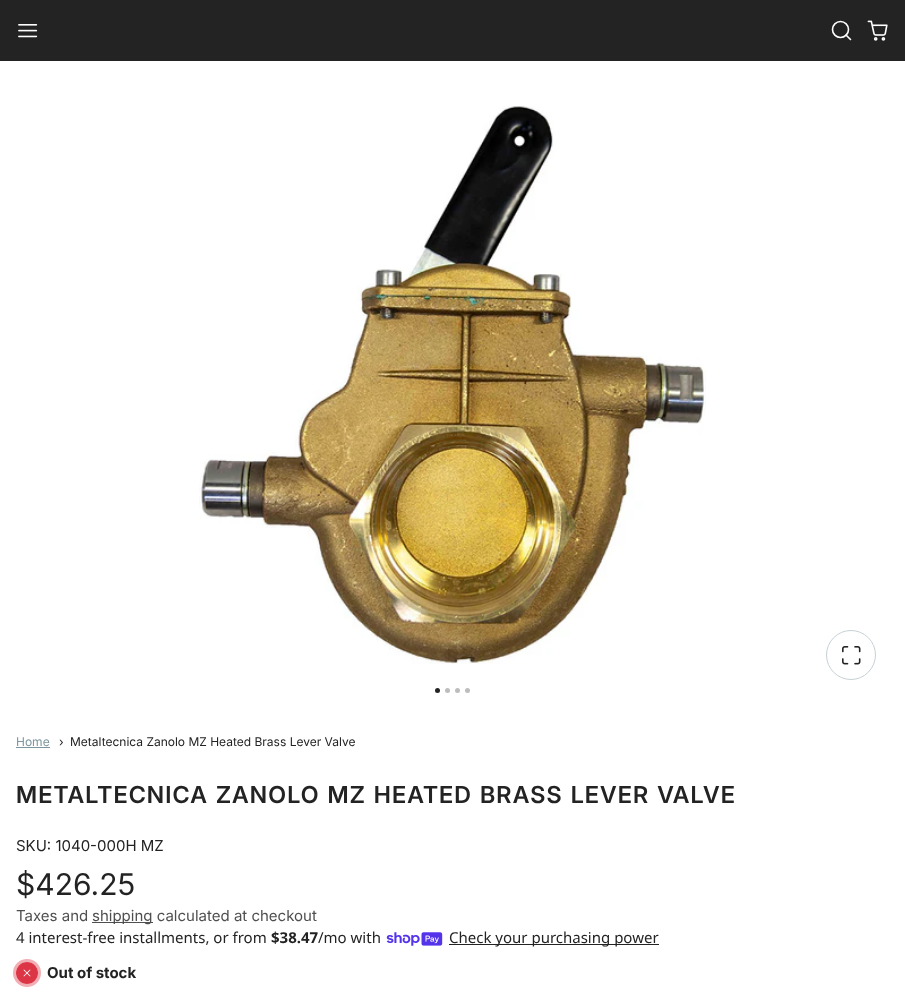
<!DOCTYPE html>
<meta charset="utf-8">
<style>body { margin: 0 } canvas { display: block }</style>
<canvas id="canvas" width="905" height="1006"></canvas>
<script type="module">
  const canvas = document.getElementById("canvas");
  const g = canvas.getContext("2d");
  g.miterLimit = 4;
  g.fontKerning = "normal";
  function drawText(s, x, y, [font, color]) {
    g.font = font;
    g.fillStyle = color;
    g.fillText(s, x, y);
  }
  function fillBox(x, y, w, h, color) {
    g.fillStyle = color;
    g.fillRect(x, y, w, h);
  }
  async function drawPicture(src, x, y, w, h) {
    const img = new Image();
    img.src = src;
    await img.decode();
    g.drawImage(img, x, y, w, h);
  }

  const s1 = ["12px Inter", "#7D959F"];
  const s2 = ["12px Inter", "#232323"];
  const s3 = ["600 23.4px Inter", "#232323"];
  const s4 = ["15px Inter", "#232323"];
  const s5 = ["30px Inter", "#232323"];
  const s6 = ["15px Inter", "#4F4F4F"];
  const s7 = ["15px Noto Sans", "#232323"];
  const s8 = ["bold 15px Noto Sans", "#232323"];
  const s9 = ["bold 15px Inter", "#232323"];

  fillBox(0, 0, 905, 1006, "#FFFFFF");
  fillBox(0, 0, 905, 61, "#232323");
  await drawPicture("pic1.png", 18, 24, 20, 14);
  g.beginPath();
  g.arc(840.5, 29.5, 8, 0, Math.PI * 2);
  g.strokeStyle = "#FFFFFF";
  g.lineWidth = 1.6;
  g.stroke();
  g.beginPath();
  g.moveTo(850.5, 39.5);
  g.lineTo(846, 35);
  g.lineCap = "round";
  g.lineJoin = "round";
  g.stroke();
  await drawPicture("pic2.png", 867, 20, 21, 21);
  await drawPicture("pic3.png", 199, 106, 507, 558);
  g.beginPath();
  g.arc(437.5, 690.5, 2.5, 0, Math.PI * 2);
  g.fill();
  g.fillStyle = "#BDBDBD";
  g.beginPath();
  g.arc(447.5, 690.5, 2.5, 0, Math.PI * 2);
  g.fill();
  g.beginPath();
  g.arc(457.5, 690.5, 2.5, 0, Math.PI * 2);
  g.fill();
  g.beginPath();
  g.arc(467.5, 690.5, 2.5, 0, Math.PI * 2);
  g.fill();
  g.beginPath();
  g.arc(851, 655, 24.5, 0, Math.PI * 2);
  g.strokeStyle = "#C7D1D5";
  g.lineWidth = 1;
  g.stroke();
  await drawPicture("pic4.png", 842, 646, 19, 19);
  drawText("Home", 16, 746, s1);
  fillBox(16, 747, 34, 1, "#7D959F");
  drawText("›", 59, 746, s2);
  drawText("Metaltecnica Zanolo MZ Heated Brass Lever Valve", 70, 746, s2);
  g.letterSpacing = "1.15px";
  g.wordSpacing = "1.25px";
  drawText("METALTECNICA ZANOLO MZ HEATED BRASS LEVER VALVE", 16, 803, s3);
  g.letterSpacing = "0px";
  g.wordSpacing = "0px";
  drawText("SKU: 1040-000H MZ", 16, 851, s4);
  drawText("$426.25", 16, 895, s5);
  drawText("Taxes and", 16, 921, s6);
  fillBox(92, 922, 61, 1, "#4F4F4F");
  drawText("shipping calculated at checkout", 92, 921, s6);
  drawText("4 interest-free installments, or from", 16, 943, s7);
  drawText("$38.47", 271, 943, s8);
  drawText("/mo with", 318, 943, s7);
  await drawPicture("pic5.png", 386, 932, 57, 14);
  fillBox(449, 944, 210, 1, "#232323");
  drawText("Check your purchasing power", 449, 943, s7);
  g.beginPath();
  g.arc(27, 973, 12.5, 0, Math.PI * 2);
  g.strokeStyle = "#F1AEB5";
  g.lineWidth = 3;
  g.stroke();
  g.fillStyle = "#DC3545";
  g.beginPath();
  g.arc(27, 973, 11, 0, Math.PI * 2);
  g.fill();
  await drawPicture("pic6.png", 23, 969, 8, 8);
  drawText("Out of stock", 47, 978, s9);
</script>
